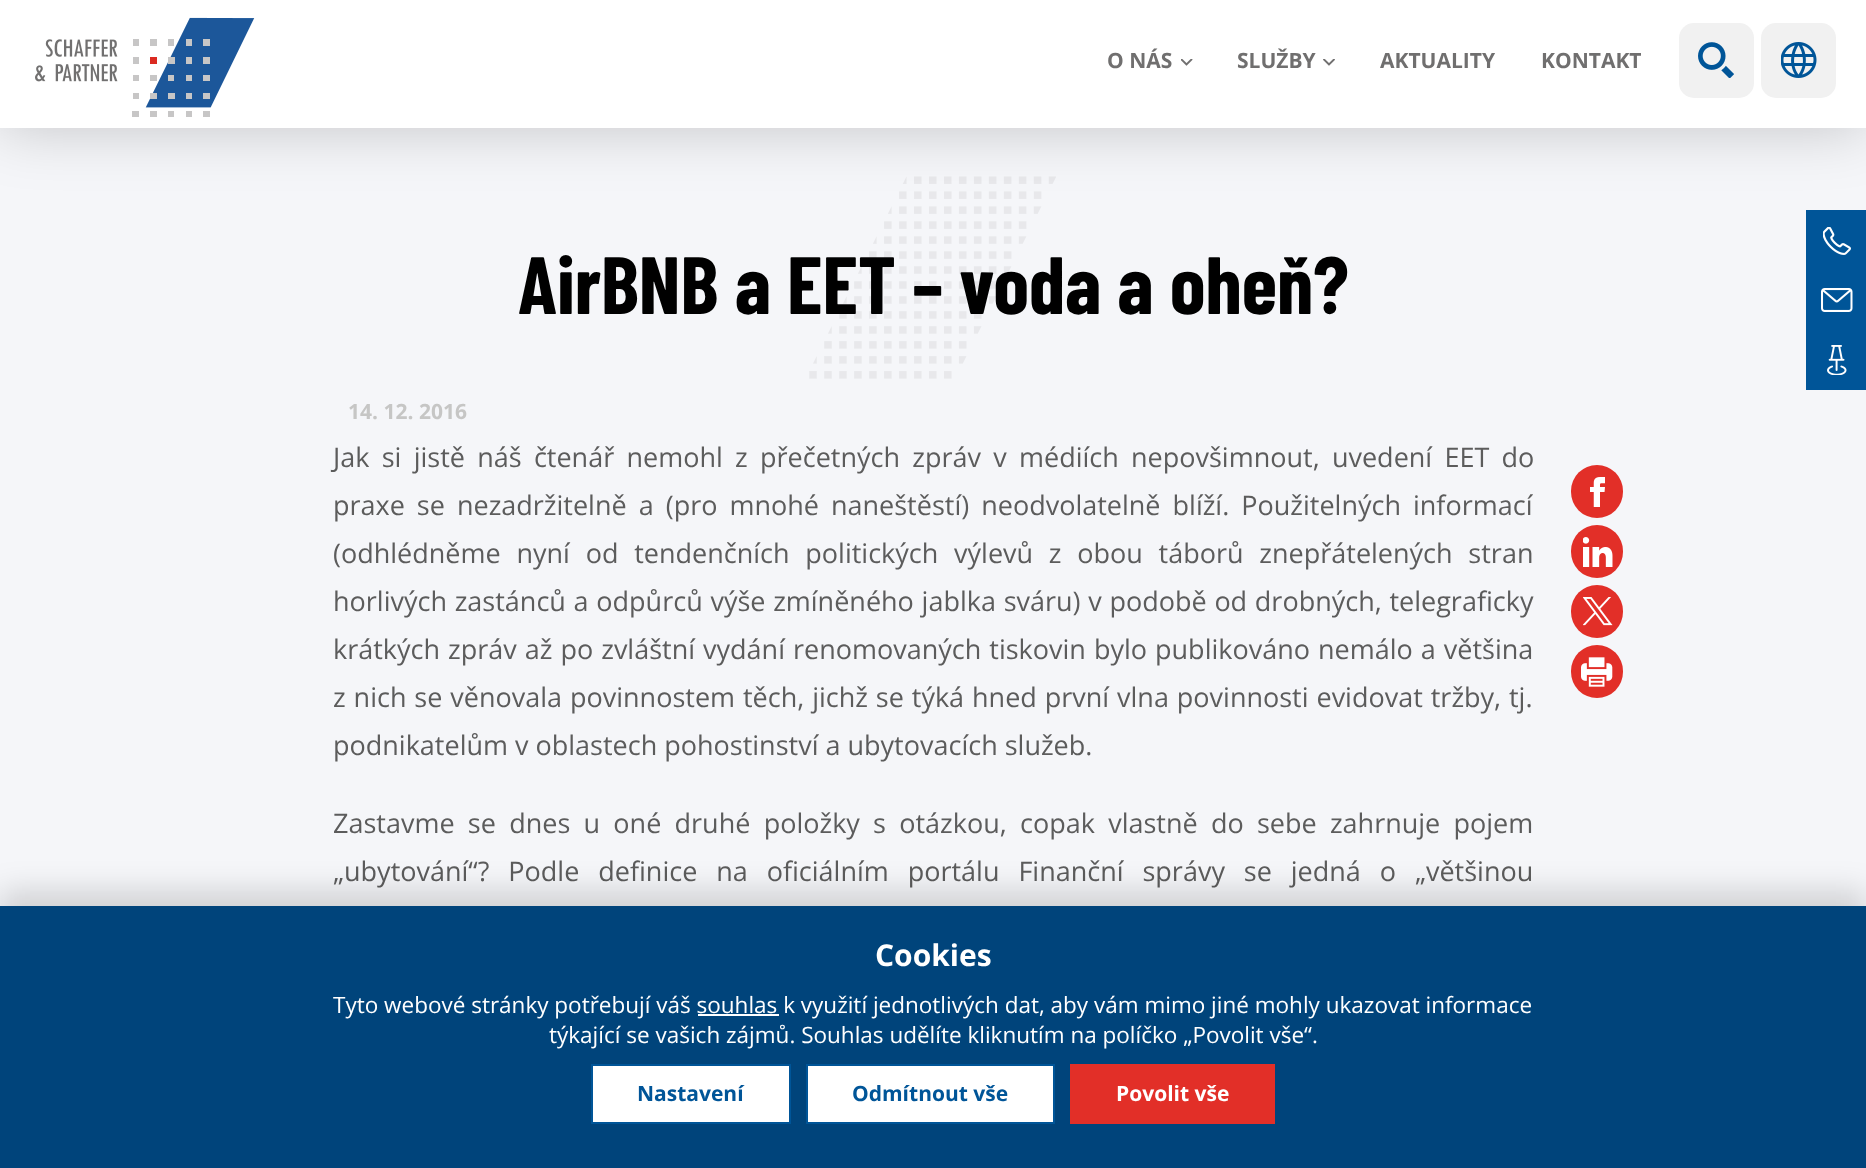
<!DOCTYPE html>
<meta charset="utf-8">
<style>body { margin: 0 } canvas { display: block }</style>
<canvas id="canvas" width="1866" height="1168"></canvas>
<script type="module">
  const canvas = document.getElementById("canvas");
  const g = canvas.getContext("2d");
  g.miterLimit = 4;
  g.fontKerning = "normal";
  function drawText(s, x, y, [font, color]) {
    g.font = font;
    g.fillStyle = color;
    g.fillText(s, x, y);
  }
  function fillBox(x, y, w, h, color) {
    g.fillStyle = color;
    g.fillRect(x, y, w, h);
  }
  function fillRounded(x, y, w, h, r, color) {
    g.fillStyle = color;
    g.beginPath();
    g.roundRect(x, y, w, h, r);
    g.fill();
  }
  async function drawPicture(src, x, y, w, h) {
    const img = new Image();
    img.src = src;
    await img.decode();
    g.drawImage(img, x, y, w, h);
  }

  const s1 = ["bold 21px Open Sans", "#706F6F"];
  const s2 = ["bold 81px Barlow Condensed", "#000000"];
  const s3 = ["bold 21px Open Sans", "#C6C6C5"];
  const s4 = ["27px Open Sans", "#5C5C5C"];
  const s5 = ["bold 30px Open Sans", "#FFFFFF"];
  const s6 = ["22.5px Open Sans", "#FFFFFF"];
  const s7 = ["bold 21px Open Sans", "#005598"];
  const s8 = ["bold 21px Open Sans", "#FFFFFF"];

  fillBox(0, 0, 1866, 1168, "#F5F6F9");
  await drawPicture("pic6.png", 809, 176, 247, 203);
  g.fillStyle = "rgba(0, 0, 0, 0.2)";
  g.filter = "blur(30px)";
  g.beginPath();
  g.rect(0, 0, 1866, 128);
  g.fill();
  g.filter = "none";
  fillBox(0, 0, 1866, 128, "#FFFFFF");
  await drawPicture("pic1.png", 35, 17, 220, 100);
  drawText("O NÁS", 1107, 68, s1);
  await drawPicture("pic2.png", 1181, 59, 12, 7);
  drawText("SLUŽBY", 1237, 68, s1);
  await drawPicture("pic3.png", 1323, 59, 12, 7);
  drawText("AKTUALITY", 1380, 68, s1);
  drawText("KONTAKT", 1541, 68, s1);
  fillRounded(1679, 23, 75, 75, 15, "#F1F1F1");
  await drawPicture("pic4.png", 1698, 42, 36, 36);
  fillRounded(1761, 23, 75, 75, 15, "#F1F1F1");
  await drawPicture("pic5.png", 1781, 42, 36, 36);
  drawText("AirBNB a EET – voda a oheň?", 518, 314, s2);
  fillBox(1806, 210, 60, 180, "#005598");
  await drawPicture("pic7.png", 1823, 227, 28, 28);
  await drawPicture("pic8.png", 1821, 288, 32, 24);
  await drawPicture("pic9.png", 1827, 345, 20, 30);
  drawText("14. 12. 2016", 348, 419, s3);
  fillRounded(1571, 465, 52, 53, 26, "#E22F28");
  await drawPicture("pic10.png", 1590, 477, 15, 30);
  fillRounded(1571, 525, 52, 53, 26, "#E22F28");
  await drawPicture("pic11.png", 1583, 537, 30, 30);
  fillRounded(1571, 585, 52, 53, 26, "#E22F28");
  await drawPicture("pic12.png", 1583, 597, 30, 29);
  fillRounded(1571, 645, 52, 53, 26, "#E22F28");
  await drawPicture("pic13.png", 1581, 657, 32, 30);
  g.wordSpacing = "5.25px";
  drawText("Jak si jistě náš čtenář nemohl z přečetných zpráv v médiích nepovšimnout, uvedení EET do", 333, 467, s4);
  g.wordSpacing = "5px";
  drawText("praxe se nezadržitelně a (pro mnohé naneštěstí) neodvolatelně blíží. Použitelných informací", 333, 515, s4);
  g.wordSpacing = "8.75px";
  drawText("(odhlédněme nyní od tendenčních politických výlevů z obou táborů znepřátelených stran", 333, 563, s4);
  g.wordSpacing = "0.7px";
  drawText("horlivých zastánců a odpůrců výše zmíněného jablka sváru) v podobě od drobných, telegraficky", 333, 611, s4);
  g.wordSpacing = "1px";
  drawText("krátkých zpráv až po zvláštní vydání renomovaných tiskovin bylo publikováno nemálo a většina", 333, 659, s4);
  g.wordSpacing = "0.9px";
  drawText("z nich se věnovala povinnostem těch, jichž se týká hned první vlna povinnosti evidovat tržby, tj.", 333, 707, s4);
  g.wordSpacing = "0px";
  drawText("podnikatelům v oblastech pohostinství a ubytovacích služeb.", 333, 755, s4);
  g.wordSpacing = "6.25px";
  drawText("Zastavme se dnes u oné druhé položky s otázkou, copak vlastně do sebe zahrnuje pojem", 333, 833, s4);
  g.wordSpacing = "11.9px";
  drawText("„ubytování“? Podle definice na oficiálním portálu Finanční správy se jedná o „většinou", 333, 881, s4);
  g.fillStyle = "rgba(0, 0, 0, 0.15)";
  g.filter = "blur(15px)";
  g.beginPath();
  g.rect(0, 891, 1866, 263);
  g.fill();
  g.filter = "none";
  fillBox(0, 906, 1866, 262, "#00447B");
  g.wordSpacing = "0px";
  drawText("Cookies", 875, 966, s5);
  drawText("Tyto webové stránky potřebují váš souhlas k využití jednotlivých dat, aby vám mimo jiné mohly ukazovat informace", 333, 1013, s6);
  fillBox(698, 1014, 81, 2, "#FFFFFF");
  drawText("týkající se vašich zájmů. Souhlas udělíte kliknutím na políčko „Povolit vše“.", 549, 1043, s6);
  g.beginPath();
  g.rect(592, 1065, 198, 58);
  g.fill();
  g.strokeStyle = "#005598";
  g.lineWidth = 2;
  g.stroke();
  drawText("Nastavení", 637, 1101, s7);
  g.fillStyle = "#FFFFFF";
  g.beginPath();
  g.rect(807, 1065, 247, 58);
  g.fill();
  g.stroke();
  drawText("Odmítnout vše", 852, 1101, s7);
  fillBox(1070, 1064, 205, 60, "#E22F28");
  drawText("Povolit vše", 1116, 1101, s8);
</script>
